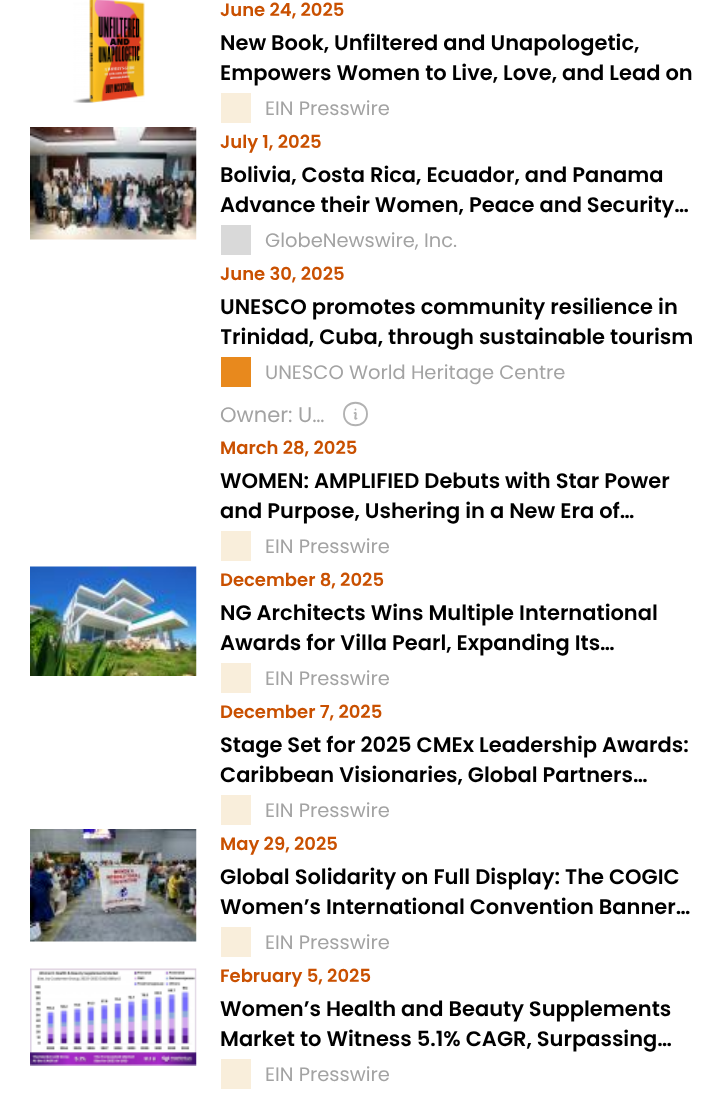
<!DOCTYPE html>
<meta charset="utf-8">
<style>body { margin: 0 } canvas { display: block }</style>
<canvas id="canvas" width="724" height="1098"></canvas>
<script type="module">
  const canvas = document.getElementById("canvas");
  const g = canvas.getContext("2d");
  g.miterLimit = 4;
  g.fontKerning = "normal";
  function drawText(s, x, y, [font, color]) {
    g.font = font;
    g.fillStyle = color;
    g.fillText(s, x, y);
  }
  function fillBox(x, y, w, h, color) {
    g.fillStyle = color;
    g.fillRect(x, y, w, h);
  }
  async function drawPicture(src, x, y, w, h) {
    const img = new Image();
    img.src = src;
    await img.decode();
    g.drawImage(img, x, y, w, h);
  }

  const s1 = ["600 18px Poppins", "#C95000"];
  const s2 = ["600 21px Poppins", "#000000"];
  const s3 = ["19.5px Poppins", "#A3A3A3"];
  const s4 = ["21px Poppins", "#A3A3A3"];

  fillBox(0, 0, 724, 1098, "#FFFFFF");
  await drawPicture("pic1.png", 73, 0, 72, 103);
  drawText("June 24, 2025", 220, 16, s1);
  drawText("New Book, Unfiltered and Unapologetic,", 220, 50, s2);
  drawText("Empowers Women to Live, Love, and Lead on", 220, 80, s2);
  fillBox(221, 93, 30, 30, "#F9EEDB");
  drawText("EIN Presswire", 265, 115, s3);
  await drawPicture("pic2.png", 30, 127, 167, 113);
  drawText("July 1, 2025", 220, 148, s1);
  drawText("Bolivia, Costa Rica, Ecuador, and Panama", 220, 182, s2);
  drawText("Advance their Women, Peace and Security…", 220, 212, s2);
  fillBox(221, 225, 30, 30, "#D9D9D9");
  drawText("GlobeNewswire, Inc.", 265, 247, s3);
  drawText("June 30, 2025", 220, 280, s1);
  drawText("UNESCO promotes community resilience in", 220, 314, s2);
  g.save();
  g.beginPath();
  g.rect(221, 291, 474, 60);
  g.clip();
  drawText("Trinidad, Cuba, through sustainable tourism", 220, 344, s2);
  g.restore();
  fillBox(221, 357, 30, 30, "#E8891D");
  drawText("UNESCO World Heritage Centre", 265, 379, s3);
  drawText("Owner: U…", 220, 422, s4);
  g.beginPath();
  g.moveTo(354.5, 413);
  g.bezierCurveTo(358, 411.5, 353, 420.5, 356.5, 418.5);
  g.moveTo(367, 414);
  g.bezierCurveTo(367, 429, 344, 429, 344, 414);
  g.bezierCurveTo(344, 399, 367, 399, 367, 414);
  g.closePath();
  g.moveTo(355.5, 409.5);
  g.lineTo(355.5, 409.5);
  g.closePath();
  g.strokeStyle = "#B2B2B2";
  g.lineWidth = 1.9;
  g.lineCap = "round";
  g.lineJoin = "round";
  g.stroke();
  drawText("March 28, 2025", 220, 454, s1);
  drawText("WOMEN: AMPLIFIED Debuts with Star Power", 220, 488, s2);
  drawText("and Purpose, Ushering in a New Era of…", 220, 518, s2);
  fillBox(221, 531, 30, 30, "#F9EEDB");
  drawText("EIN Presswire", 265, 553, s3);
  await drawPicture("pic3.png", 30, 566, 167, 110);
  drawText("December 8, 2025", 220, 586, s1);
  drawText("NG Architects Wins Multiple International", 220, 620, s2);
  drawText("Awards for Villa Pearl, Expanding Its…", 220, 650, s2);
  fillBox(221, 663, 30, 30, "#F9EEDB");
  drawText("EIN Presswire", 265, 685, s3);
  drawText("December 7, 2025", 220, 718, s1);
  drawText("Stage Set for 2025 CMEx Leadership Awards:", 220, 752, s2);
  drawText("Caribbean Visionaries, Global Partners…", 220, 782, s2);
  fillBox(221, 795, 30, 30, "#F9EEDB");
  drawText("EIN Presswire", 265, 817, s3);
  await drawPicture("pic4.png", 30, 829, 167, 113);
  drawText("May 29, 2025", 220, 850, s1);
  drawText("Global Solidarity on Full Display: The COGIC", 220, 884, s2);
  drawText("Women’s International Convention Banner…", 220, 914, s2);
  fillBox(221, 927, 30, 30, "#F9EEDB");
  drawText("EIN Presswire", 265, 949, s3);
  await drawPicture("pic5.png", 30, 968, 167, 98);
  drawText("February 5, 2025", 220, 982, s1);
  drawText("Women’s Health and Beauty Supplements", 220, 1016, s2);
  drawText("Market to Witness 5.1% CAGR, Surpassing…", 220, 1046, s2);
  fillBox(221, 1059, 30, 30, "#F9EEDB");
  drawText("EIN Presswire", 265, 1081, s3);
</script>
